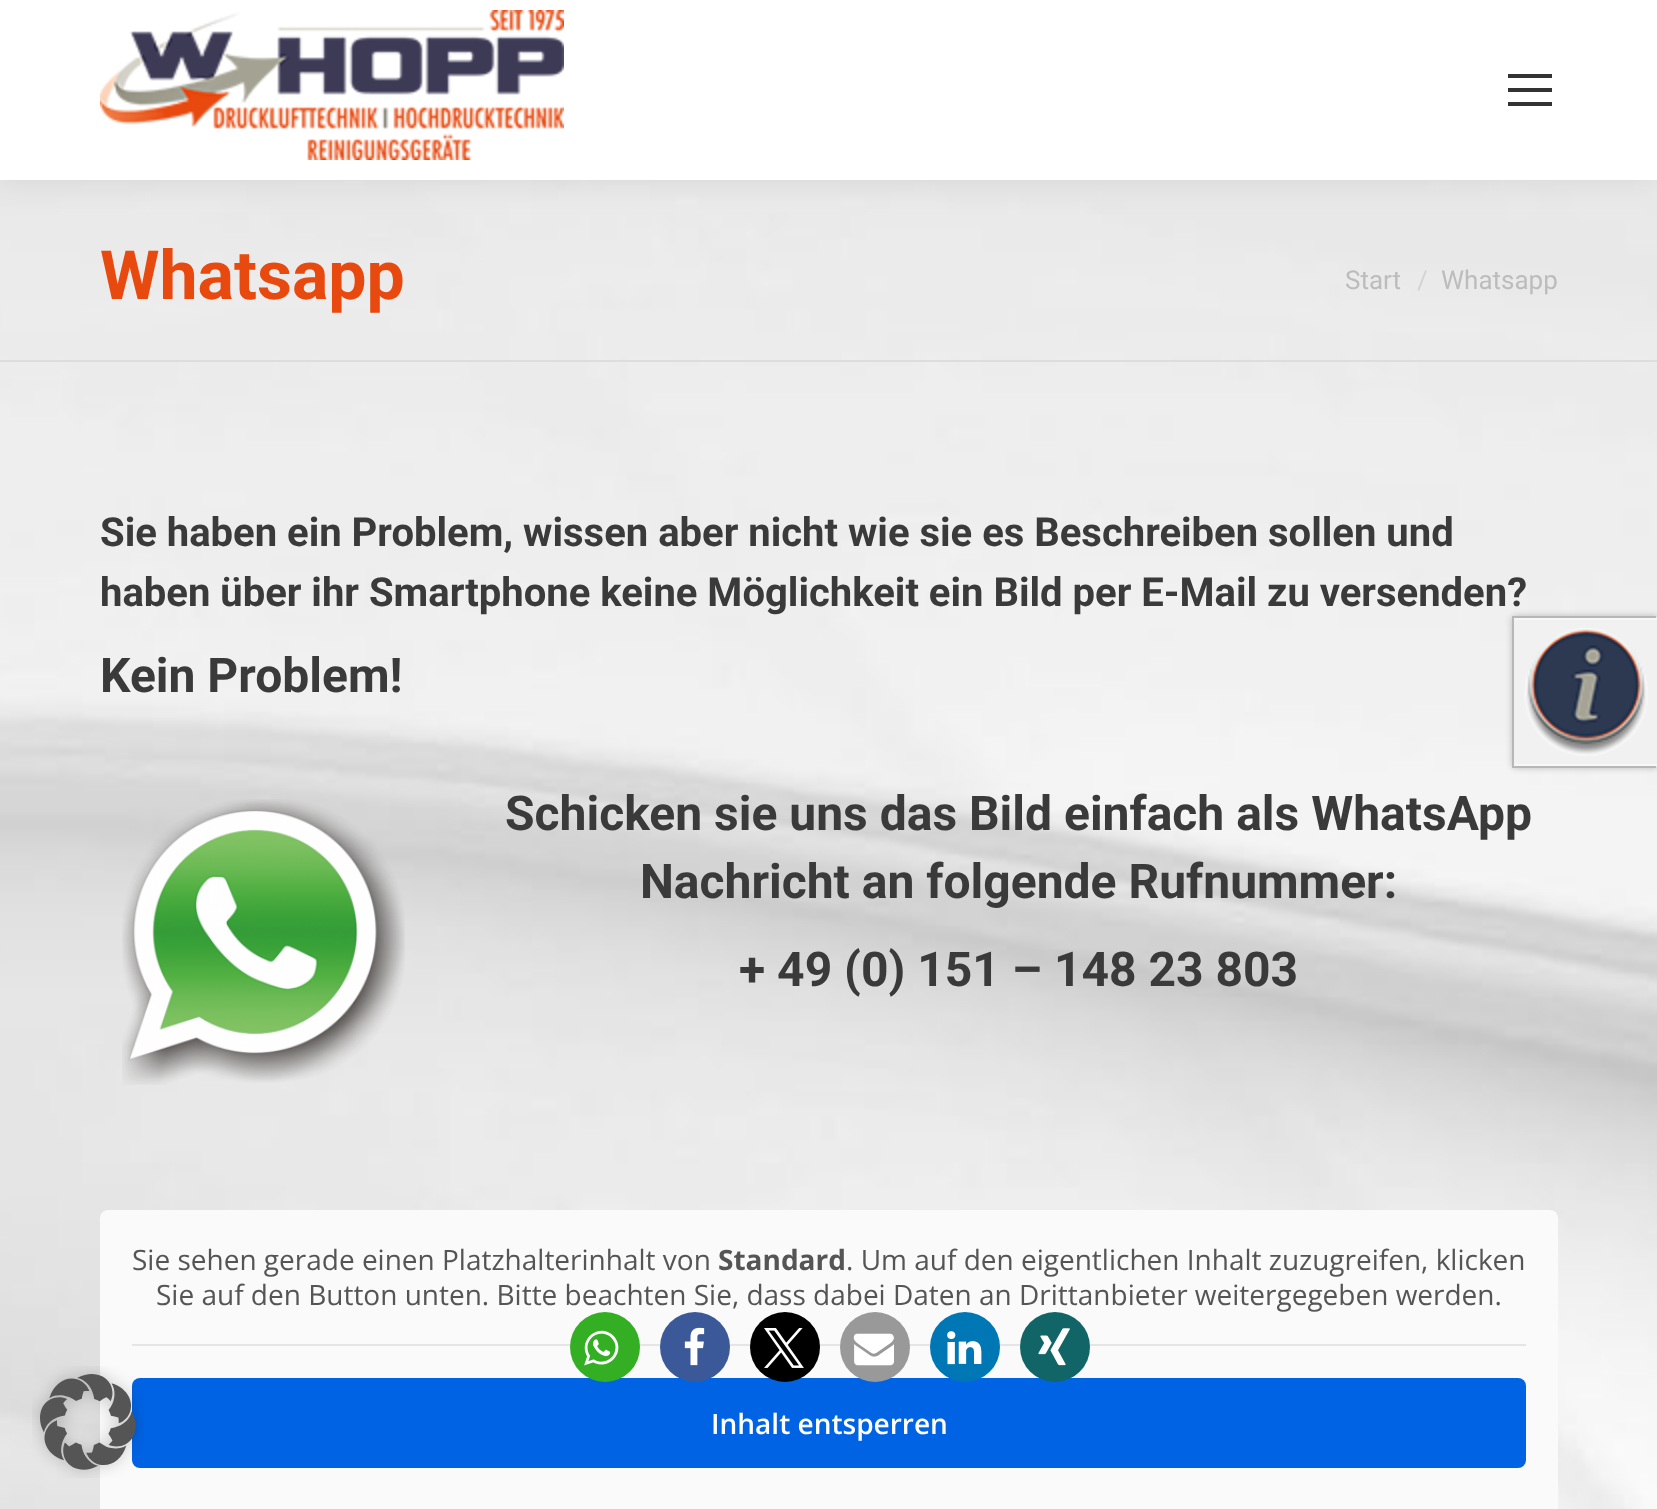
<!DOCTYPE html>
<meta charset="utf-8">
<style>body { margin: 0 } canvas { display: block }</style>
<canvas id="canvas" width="1657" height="1509"></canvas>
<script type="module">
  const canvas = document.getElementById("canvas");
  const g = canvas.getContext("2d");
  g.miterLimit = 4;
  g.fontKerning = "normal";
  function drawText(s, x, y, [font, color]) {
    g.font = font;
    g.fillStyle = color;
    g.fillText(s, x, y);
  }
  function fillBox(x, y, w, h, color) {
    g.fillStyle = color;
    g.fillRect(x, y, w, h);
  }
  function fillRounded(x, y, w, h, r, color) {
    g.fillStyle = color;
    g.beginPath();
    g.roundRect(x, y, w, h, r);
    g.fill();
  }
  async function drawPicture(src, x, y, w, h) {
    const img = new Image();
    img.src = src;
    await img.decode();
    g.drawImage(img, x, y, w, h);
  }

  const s1 = ["bold 68px Roboto", "#E8490F"];
  const s2 = ["26px Roboto", "#BCBCBC"];
  const s3 = ["26px Roboto", "#D3D3D3"];
  const s4 = ["bold 40px Roboto", "#3A3A3A"];
  const s5 = ["bold 48px Roboto", "#3A3A3A"];
  const s6 = ["28px Open Sans", "#555555"];
  const s7 = ["bold 28px Open Sans", "#555555"];
  const s8 = ["600 28px Open Sans", "#FFFFFF"];

  fillBox(0, 0, 1657, 1509, "#FFFFFF");
  await drawPicture("pic1.png", 0, 180, 1657, 1329);
  g.fillStyle = "rgba(0, 0, 0, 0.07)";
  g.filter = "blur(15px)";
  g.beginPath();
  g.rect(-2, -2, 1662, 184);
  g.fill();
  g.filter = "none";
  fillBox(0, 0, 1657, 180, "#FFFFFF");
  await drawPicture("pic2.png", 100, 10, 464, 150);
  fillBox(1508, 74, 44, 4, "#333333");
  fillBox(1508, 88, 44, 4, "#333333");
  fillBox(1508, 102, 44, 4, "#333333");
  fillBox(0, 360, 1657, 2, "#DDDDDD");
  drawText("Whatsapp", 100, 299, s1);
  drawText("Start", 1345, 289, s2);
  drawText("/", 1417, 289, s3);
  drawText("Whatsapp", 1441, 289, s2);
  drawText("Sie haben ein Problem, wissen aber nicht wie sie es Beschreiben sollen und", 100, 546, s4);
  drawText("haben über ihr Smartphone keine Möglichkeit ein Bild per E-Mail zu versenden?", 100, 606, s4);
  drawText("Kein Problem!", 100, 692, s5);
  await drawPicture("pic3.png", 122, 799, 283, 286);
  drawText("Schicken sie uns das Bild einfach als WhatsApp", 505, 830, s5);
  drawText("Nachricht an folgende Rufnummer:", 640, 898, s5);
  drawText("+ 49 (0) 151 – 148 23 803", 739, 986, s5);
  fillRounded(100, 1210, 1458, 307, 8, "#FAFAFA");
  fillBox(132, 1344, 1394, 2, "#E5E5E5");
  drawText("Sie sehen gerade einen Platzhalterinhalt von", 132, 1270, s6);
  drawText("Standard", 718, 1270, s7);
  drawText(". Um auf den eigentlichen Inhalt zuzugreifen, klicken", 846, 1270, s6);
  drawText("Sie auf den Button unten. Bitte beachten Sie, dass dabei Daten an Drittanbieter weitergegeben werden.", 156, 1305, s6);
  fillRounded(132, 1378, 1394, 90, 8, "#0063E3");
  drawText("Inhalt entsperren", 711, 1434, s8);
  g.fillStyle = "#34AF23";
  g.beginPath();
  g.arc(605, 1347, 35, 0, Math.PI * 2);
  g.fill();
  await drawPicture("pic4.png", 584, 1330, 35, 36);
  g.fillStyle = "#3B5998";
  g.beginPath();
  g.arc(695, 1347, 35, 0, Math.PI * 2);
  g.fill();
  await drawPicture("pic5.png", 684, 1327, 21, 39);
  g.fillStyle = "#000000";
  g.beginPath();
  g.arc(785, 1347, 35, 0, Math.PI * 2);
  g.fill();
  await drawPicture("pic6.png", 764, 1328, 40, 40);
  g.fillStyle = "#999999";
  g.beginPath();
  g.arc(875, 1347, 35, 0, Math.PI * 2);
  g.fill();
  await drawPicture("pic7.png", 853, 1333, 41, 33);
  g.fillStyle = "#0077B5";
  g.beginPath();
  g.arc(965, 1347, 35, 0, Math.PI * 2);
  g.fill();
  await drawPicture("pic8.png", 947, 1331, 35, 34);
  g.fillStyle = "#126567";
  g.beginPath();
  g.arc(1055, 1347, 35, 0, Math.PI * 2);
  g.fill();
  await drawPicture("pic9.png", 1038, 1328, 32, 38);
  g.save();
  g.beginPath();
  g.moveTo(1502, 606);
  g.lineTo(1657, 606);
  g.lineTo(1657, 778);
  g.lineTo(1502, 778);
  g.closePath();
  g.moveTo(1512, 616);
  g.lineTo(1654, 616);
  g.bezierCurveTo(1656, 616, 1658, 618, 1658, 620);
  g.lineTo(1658, 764);
  g.bezierCurveTo(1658, 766, 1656, 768, 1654, 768);
  g.lineTo(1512, 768);
  g.closePath();
  g.clip("evenodd");
  g.fillStyle = "rgba(24, 24, 24, 0.25)";
  g.filter = "blur(3px)";
  g.beginPath();
  g.roundRect(1512, 616, 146, 152, 4);
  g.fill();
  g.filter = "none";
  g.restore();
  g.fillStyle = "rgba(240, 240, 240, 0.95)";
  g.beginPath();
  g.moveTo(1512, 616);
  g.lineTo(1654, 616);
  g.bezierCurveTo(1656, 616, 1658, 618, 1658, 620);
  g.lineTo(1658, 764);
  g.bezierCurveTo(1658, 766, 1656, 768, 1654, 768);
  g.lineTo(1512, 768);
  g.closePath();
  g.fill();
  fillBox(1512, 616, 144, 2, "#B7B7B7");
  fillBox(1512, 766, 144, 2, "#B7B7B7");
  fillBox(1512, 616, 2, 152, "#B7B7B7");
  fillBox(1514, 618, 143, 2, "#F7F7F7");
  fillBox(1656, 618, 1, 148, "#F7F7F7");
  fillBox(1514, 764, 143, 2, "#F7F7F7");
  fillBox(1656, 620, 1, 144, "rgba(240, 240, 240, 0.95)");
  await drawPicture("pic10.png", 1524, 628, 124, 128);
  await drawPicture("pic11.png", 32, 1366, 112, 112);
</script>
